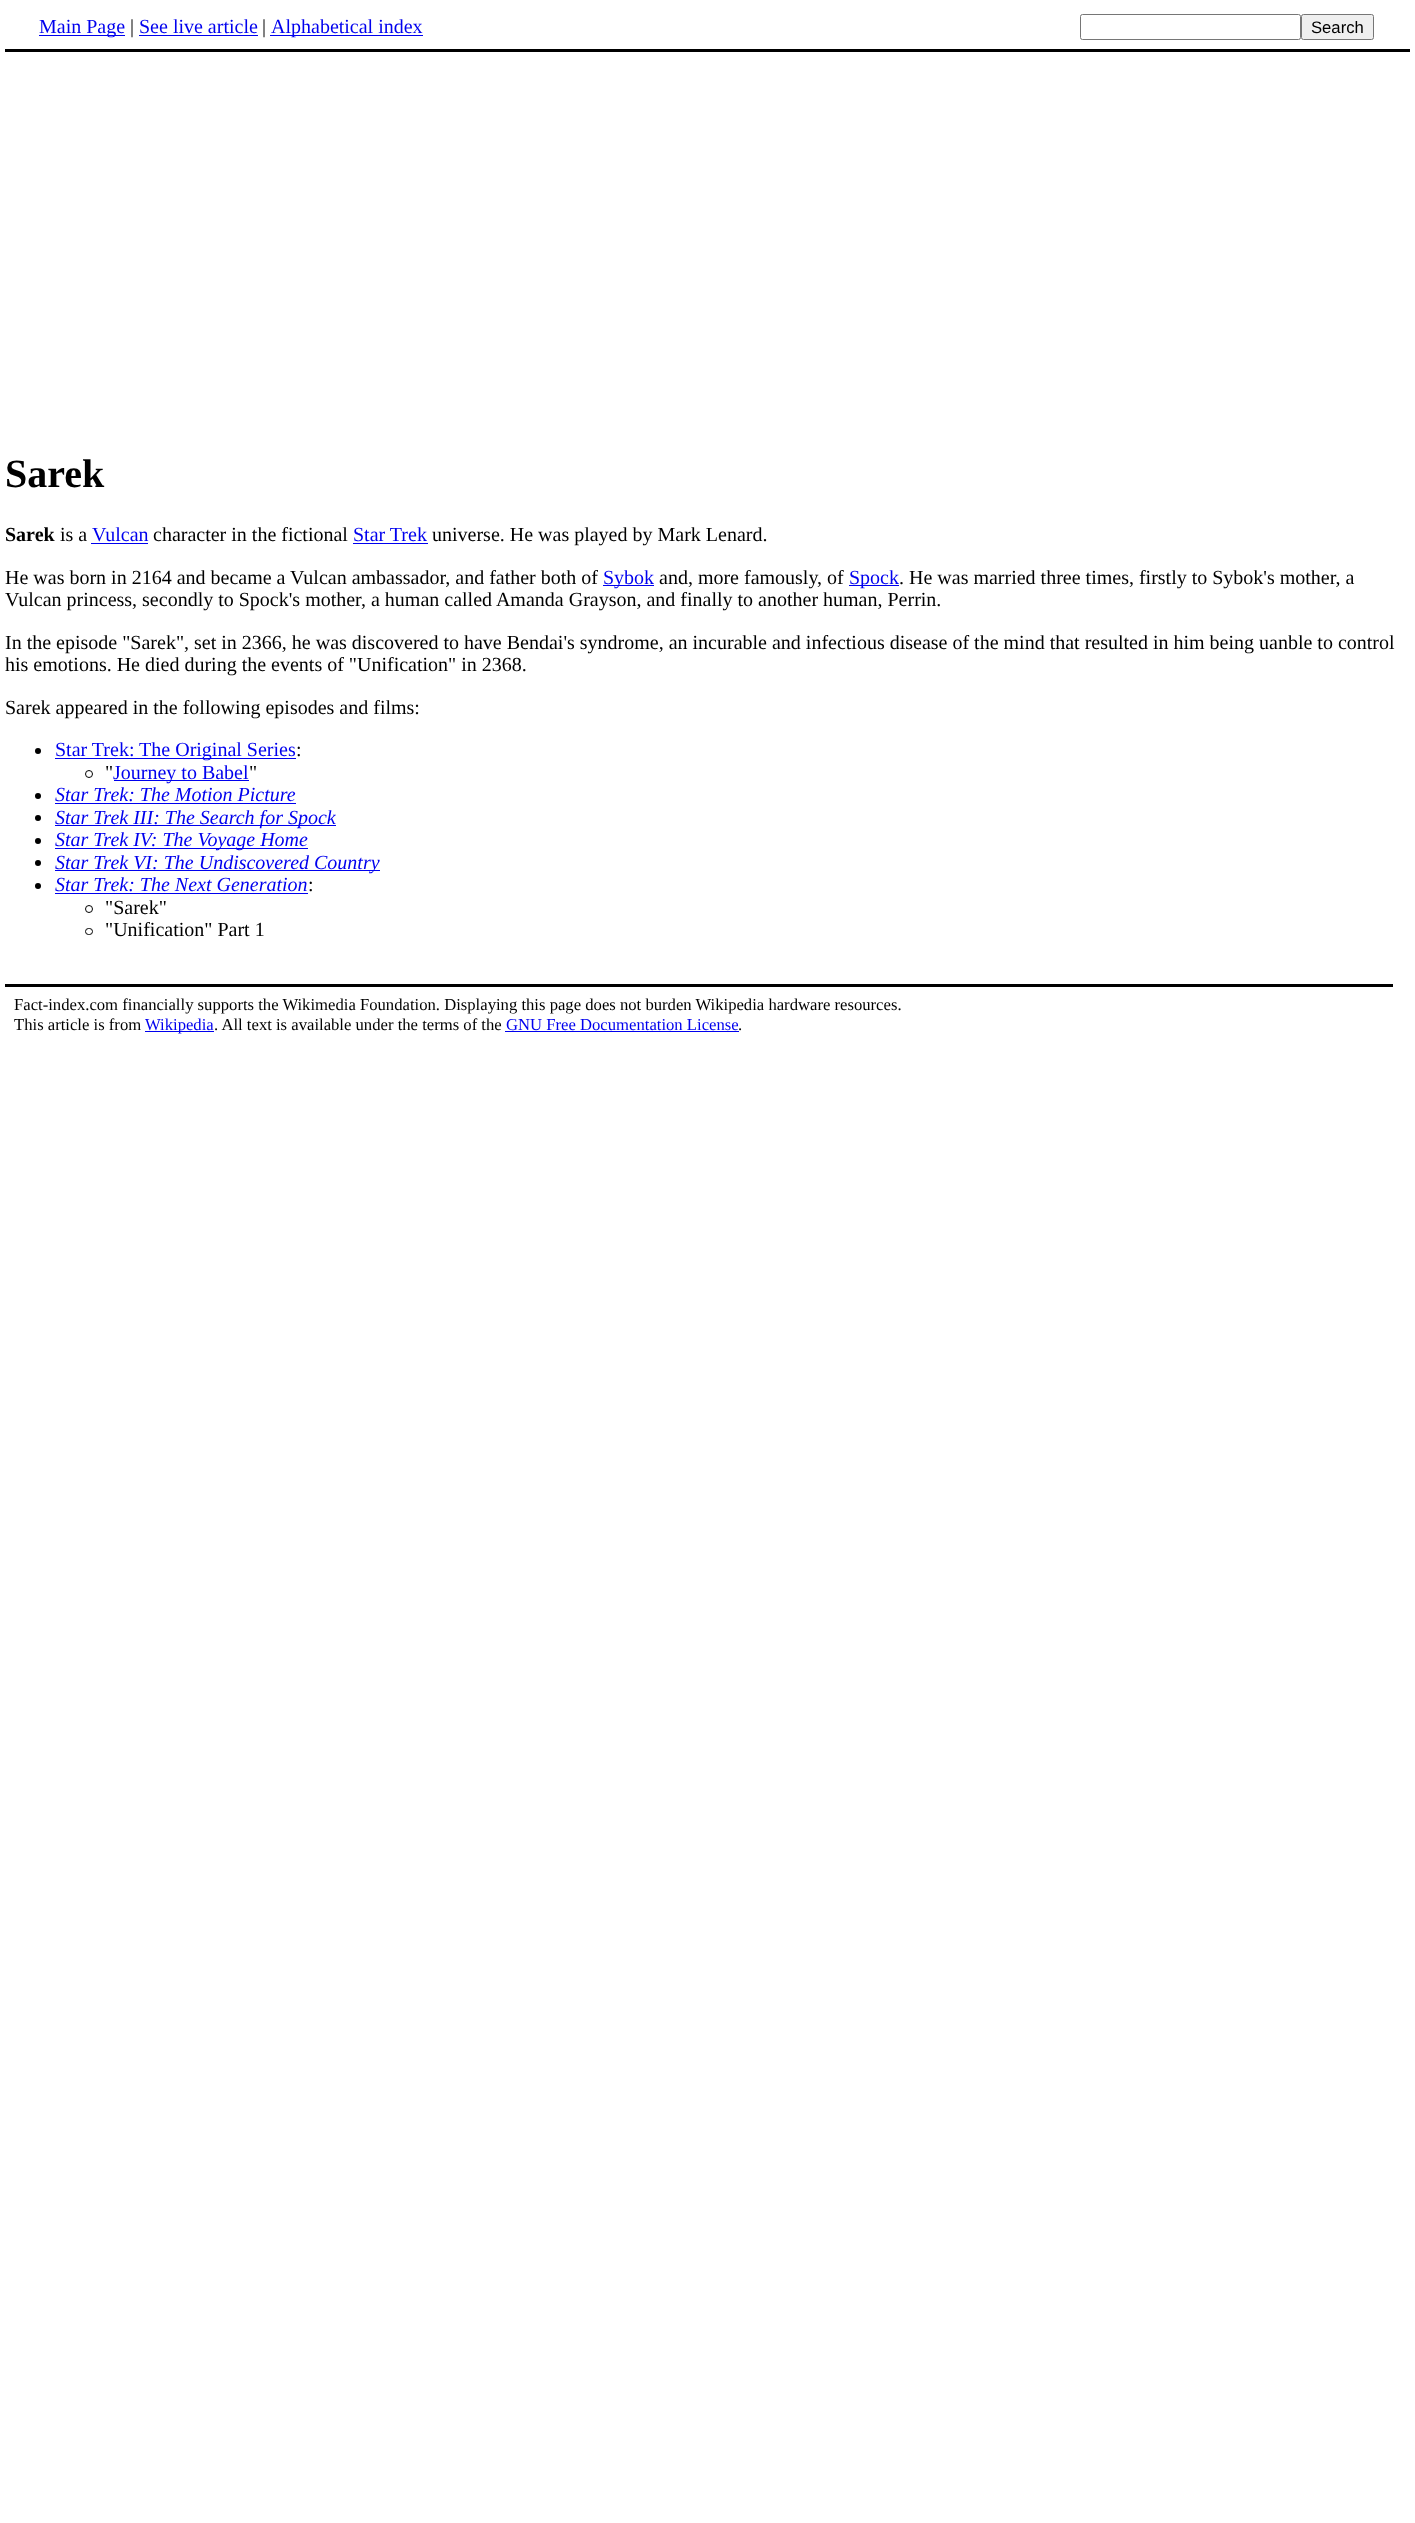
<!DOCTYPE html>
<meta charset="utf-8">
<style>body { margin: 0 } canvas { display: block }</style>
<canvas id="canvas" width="1415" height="2523"></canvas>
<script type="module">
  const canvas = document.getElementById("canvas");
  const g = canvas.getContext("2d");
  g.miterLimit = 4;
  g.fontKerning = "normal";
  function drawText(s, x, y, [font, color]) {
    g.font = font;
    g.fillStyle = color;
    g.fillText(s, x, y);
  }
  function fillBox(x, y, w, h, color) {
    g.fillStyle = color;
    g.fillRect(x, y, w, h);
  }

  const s1 = ["20px Liberation Serif", "#0000EE"];
  const s2 = ["20px Liberation Serif", "#000000"];
  const s3 = ["16.67px Liberation Sans", "#000000"];
  const s4 = ["bold 40px Liberation Serif", "#000000"];
  const s5 = ["bold 20px Liberation Serif", "#000000"];
  const s6 = ["italic 20px Liberation Serif", "#0000EE"];
  const s7 = ["16.67px Liberation Serif", "#000000"];
  const s8 = ["16.67px Liberation Serif", "#0000EE"];

  fillBox(0, 0, 1415, 2523, "#FFFFFF");
  fillBox(5, 49, 1405, 3, "#000000");
  fillBox(39, 35, 86, 1, "#0000EE");
  drawText("Main Page", 39, 33, s1);
  drawText("|", 130, 33, s2);
  drawText("See live article", 139, 33, s1);
  fillBox(139, 35, 119, 1, "#0000EE");
  drawText("|", 262, 33, s2);
  fillBox(270, 35, 153, 1, "#0000EE");
  drawText("Alphabetical index", 271, 33, s1);
  g.beginPath();
  g.roundRect(1080.5, 14.5, 220, 25, 2);
  g.strokeStyle = "#767676";
  g.stroke();
  g.fillStyle = "#EFEFEF";
  g.beginPath();
  g.roundRect(1301.5, 14.5, 72, 25, 2);
  g.fill();
  g.stroke();
  drawText("Search", 1311, 33, s3);
  drawText("Sarek", 5, 487, s4);
  drawText("Sarek", 5, 541, s5);
  drawText("is a", 60, 541, s2);
  drawText("Vulcan", 92, 541, s1);
  fillBox(91, 543, 57, 1, "#0000EE");
  drawText("character in the fictional", 153, 541, s2);
  drawText("Star Trek", 353, 541, s1);
  fillBox(353, 543, 75, 1, "#0000EE");
  drawText("universe. He was played by Mark Lenard.", 432, 541, s2);
  drawText("He was born in 2164 and became a Vulcan ambassador, and father both of", 5, 584, s2);
  fillBox(603, 585, 51, 1, "#0000EE");
  drawText("Sybok", 603, 584, s1);
  drawText("and, more famously, of", 659, 584, s2);
  fillBox(849, 585, 50, 1, "#0000EE");
  drawText("Spock", 849, 584, s1);
  drawText(". He was married three times, firstly to Sybok's mother, a", 899, 584, s2);
  drawText("Vulcan princess, secondly to Spock's mother, a human called Amanda Grayson, and finally to another human, Perrin.", 5, 606, s2);
  drawText("In the episode \"Sarek\", set in 2366, he was discovered to have Bendai's syndrome, an incurable and infectious disease of the mind that resulted in him being uanble to control", 5, 649, s2);
  drawText("his emotions. He died during the events of \"Unification\" in 2368.", 5, 671, s2);
  drawText("Sarek appeared in the following episodes and films:", 5, 714, s2);
  g.beginPath();
  g.arc(38, 751, 3, 0, Math.PI * 2);
  g.fill();
  fillBox(55, 758, 241, 1, "#0000EE");
  drawText("Star Trek: The Original Series", 55, 756, s1);
  drawText(":", 296, 756, s2);
  drawText("\"", 105, 779, s2);
  fillBox(114, 780, 135, 1, "#0000EE");
  drawText("Journey to Babel", 113, 779, s1);
  drawText("\"", 249, 779, s2);
  g.beginPath();
  g.arc(89, 774, 3.5, 0, Math.PI * 2);
  g.strokeStyle = "#000000";
  g.stroke();
  g.beginPath();
  g.arc(38, 796, 3, 0, Math.PI * 2);
  g.fill();
  drawText("Star Trek: The Motion Picture", 55, 801, s6);
  fillBox(55, 803, 241, 1, "#0000EE");
  g.fillStyle = "#000000";
  g.beginPath();
  g.arc(38, 818, 3, 0, Math.PI * 2);
  g.fill();
  fillBox(55, 825, 281, 1, "#0000EE");
  drawText("Star Trek III: The Search for Spock", 55, 824, s6);
  g.fillStyle = "#000000";
  g.beginPath();
  g.arc(38, 841, 3, 0, Math.PI * 2);
  g.fill();
  fillBox(55, 848, 253, 1, "#0000EE");
  drawText("Star Trek IV: The Voyage Home", 55, 846, s6);
  g.fillStyle = "#000000";
  g.beginPath();
  g.arc(38, 863, 3, 0, Math.PI * 2);
  g.fill();
  fillBox(55, 870, 325, 1, "#0000EE");
  drawText("Star Trek VI: The Undiscovered Country", 55, 869, s6);
  g.fillStyle = "#000000";
  g.beginPath();
  g.arc(38, 886, 3, 0, Math.PI * 2);
  g.fill();
  drawText("Star Trek: The Next Generation", 55, 891, s6);
  fillBox(55, 893, 253, 1, "#0000EE");
  drawText(":", 308, 891, s2);
  g.beginPath();
  g.arc(89, 909, 3.5, 0, Math.PI * 2);
  g.stroke();
  drawText("\"Sarek\"", 105, 914, s2);
  g.beginPath();
  g.roundRect(85.5, 928.5, 7, 6, 3);
  g.stroke();
  drawText("\"Unification\" Part 1", 105, 936, s2);
  fillBox(5, 984, 1388, 3, "#000000");
  drawText("Fact-index.com financially supports the Wikimedia Foundation. Displaying this page does not burden Wikipedia hardware resources.", 14, 1010, s7);
  drawText("This article is from", 14, 1030, s7);
  fillBox(145, 1031, 69, 1, "#0000EE");
  drawText("Wikipedia", 145, 1030, s8);
  drawText(". All text is available under the terms of the", 214, 1030, s7);
  drawText("GNU Free Documentation License", 506, 1030, s8);
  drawText(".", 738, 1030, s7);
  fillBox(505, 1031, 234, 1, "#0000EE");
</script>
